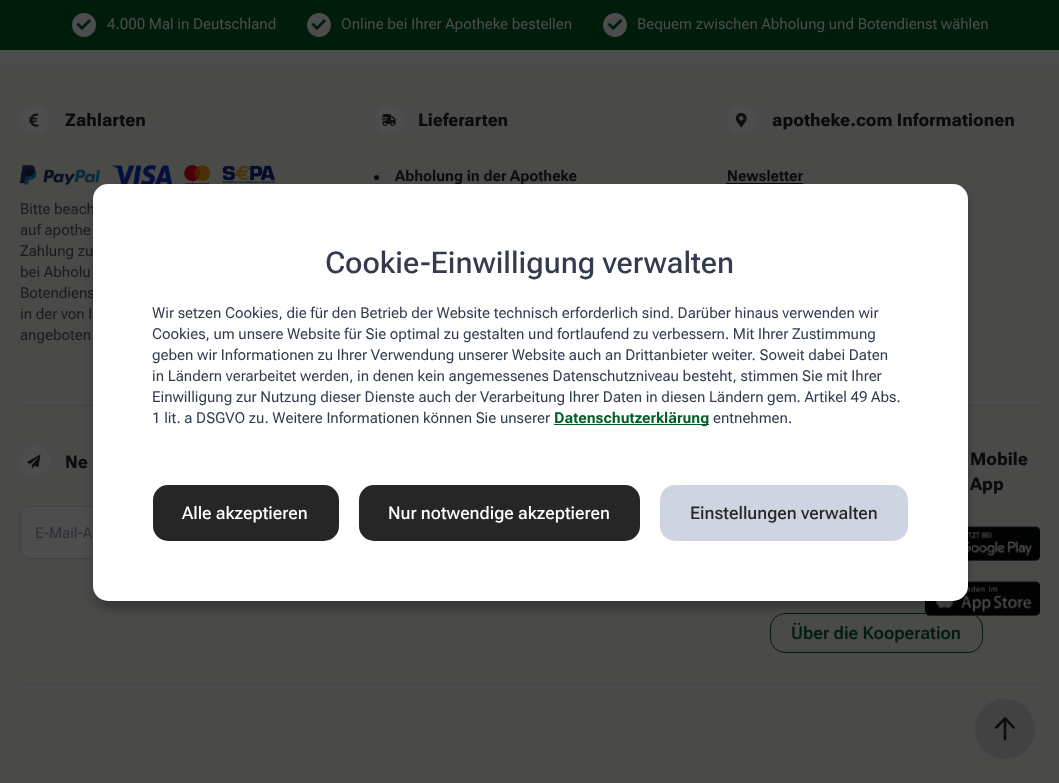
<!DOCTYPE html>
<meta charset="utf-8">
<style>body { margin: 0 } canvas { display: block }</style>
<canvas id="canvas" width="1059" height="783"></canvas>
<script type="module">
  const canvas = document.getElementById("canvas");
  const g = canvas.getContext("2d");
  g.miterLimit = 4;
  g.fontKerning = "normal";
  function drawText(s, x, y, [font, color]) {
    g.font = font;
    g.fillStyle = color;
    g.fillText(s, x, y);
  }
  function fillBox(x, y, w, h, color) {
    g.fillStyle = color;
    g.fillRect(x, y, w, h);
  }
  function fillRounded(x, y, w, h, r, color) {
    g.fillStyle = color;
    g.beginPath();
    g.roundRect(x, y, w, h, r);
    g.fill();
  }
  async function drawPicture(src, x, y, w, h) {
    const img = new Image();
    img.src = src;
    await img.decode();
    g.drawImage(img, x, y, w, h);
  }

  const s1 = ["15px Roboto Flex", "#4D4D4D"];
  const s2 = ["800 17.5px Roboto Flex", "#0B0B0B"];
  const s3 = ["15px Roboto Flex", "#1A1A1A"];
  const s4 = ["bold 15px Roboto Flex", "#0B0B0B"];
  const s5 = ["15px Roboto Flex", "#2C2F36"];
  const s6 = ["600 17.5px Roboto Flex", "#001D0C"];
  const s7 = ["500 30px Roboto Flex", "#333B4E"];
  const s8 = ["15px Roboto Flex", "#333B4E"];
  const s9 = ["bold 15px Roboto Flex", "#005F27"];
  const s10 = ["500 17.5px Roboto Flex", "#FFFFFF"];
  const s11 = ["500 17.5px Roboto Flex", "#262626"];

  fillBox(0, 0, 1059, 783, "#4D4D4D");
  fillBox(0, 0, 1059, 50, "#001D0C");
  await drawPicture("pic1.png", 72, 13, 24, 24);
  drawText("4.000 Mal in Deutschland", 107, 29, s1);
  await drawPicture("pic1.png", 307, 13, 24, 24);
  drawText("Online bei Ihrer Apotheke bestellen", 341, 29, s1);
  await drawPicture("pic2.png", 603, 13, 24, 24);
  drawText("Bequem zwischen Abholung und Botendienst wählen", 637, 29, s1);
  fillBox(0, 65, 1059, 718, "#4A4B48");
  fillBox(20, 405, 1020, 1, "#424242");
  g.fillStyle = "#4D4D4D";
  g.beginPath();
  g.arc(35, 120, 15, 0, Math.PI * 2);
  g.fill();
  await drawPicture("pic3.png", 29, 113, 10, 14);
  drawText("Zahlarten", 65, 126, s2);
  await drawPicture("pic4.png", 20, 165, 256, 20);
  drawText("Bitte beach", 20, 214, s3);
  drawText("auf apothe", 20, 235, s3);
  drawText("Zahlung zu", 20, 256, s3);
  drawText("bei Abholu", 20, 277, s3);
  drawText("Botendiens", 20, 298, s3);
  drawText("in der von I", 20, 319, s3);
  drawText("angeboten", 20, 340, s3);
  g.fillStyle = "#4D4D4D";
  g.beginPath();
  g.arc(389, 120, 15, 0, Math.PI * 2);
  g.fill();
  await drawPicture("pic5.png", 381, 114, 15, 12);
  drawText("Lieferarten", 418, 126, s2);
  g.beginPath();
  g.arc(376.5, 177.5, 2.5, 0, Math.PI * 2);
  g.fill();
  drawText("Abholung in der Apotheke", 395, 181, s4);
  g.fillStyle = "#4D4D4D";
  g.beginPath();
  g.arc(741, 120, 15, 0, Math.PI * 2);
  g.fill();
  await drawPicture("pic6.png", 735, 112, 12, 16);
  drawText("apotheke.com Informationen", 772, 126, s2);
  drawText("Newsletter", 727, 181, s4);
  fillBox(726, 183, 77, 1, "#0B0B0B");
  fillBox(20, 683, 1020, 1, "#424242");
  g.fillStyle = "#4D4D4D";
  g.beginPath();
  g.arc(35, 461, 15, 0, Math.PI * 2);
  g.fill();
  await drawPicture("pic7.png", 27, 454, 14, 14);
  drawText("Ne", 65, 468, s2);
  g.fillStyle = "#4D4D4D";
  g.beginPath();
  g.roundRect(20.5, 506.5, 274, 52, [9.5, 0, 0, 9.5]);
  g.fill();
  g.strokeStyle = "#424242";
  g.stroke();
  drawText("E-Mail-A", 35, 538, s5);
  drawText("Mobile", 970, 465, s2);
  drawText("App", 970, 490, s2);
  await drawPicture("pic8.png", 968, 526, 72, 35);
  g.beginPath();
  g.roundRect(770.5, 613.5, 212, 39, 14.5);
  g.strokeStyle = "#001D0C";
  g.stroke();
  await drawPicture("pic9.png", 925, 581, 115, 35);
  drawText("Über die Kooperation", 791, 639, s6);
  g.fillStyle = "#424242";
  g.beginPath();
  g.arc(1005, 729, 30, 0, Math.PI * 2);
  g.fill();
  await drawPicture("pic10.png", 995, 717, 20, 24);
  g.fillStyle = "rgba(0, 0, 0, 0.23)";
  g.filter = "blur(4px)";
  g.beginPath();
  g.roundRect(93, 191, 875, 418, 15);
  g.fill();
  g.filter = "none";
  fillRounded(93, 184, 875, 417, 15, "#FFFFFF");
  drawText("Cookie-Einwilligung verwalten", 325, 273, s7);
  drawText("Wir setzen Cookies, die für den Betrieb der Website technisch erforderlich sind. Darüber hinaus verwenden wir", 152, 318, s8);
  drawText("Cookies, um unsere Website für Sie optimal zu gestalten und fortlaufend zu verbessern. Mit Ihrer Zustimmung", 152, 339, s8);
  drawText("geben wir Informationen zu Ihrer Verwendung unserer Website auch an Drittanbieter weiter. Soweit dabei Daten", 152, 360, s8);
  drawText("in Ländern verarbeitet werden, in denen kein angemessenes Datenschutzniveau besteht, stimmen Sie mit Ihrer", 152, 381, s8);
  drawText("Einwilligung zur Nutzung dieser Dienste auch der Verarbeitung Ihrer Daten in diesen Ländern gem. Artikel 49 Abs.", 152, 402, s8);
  drawText("1 lit. a DSGVO zu. Weitere Informationen können Sie unserer", 152, 423, s8);
  fillBox(554, 424, 155, 1, "#005F27");
  drawText("Datenschutzerklärung", 554, 423, s9);
  drawText("entnehmen.", 713, 423, s8);
  fillRounded(153, 485, 186, 56, 15, "#262626");
  drawText("Alle akzeptieren", 182, 519, s10);
  fillRounded(359, 485, 281, 56, 15, "#262626");
  drawText("Nur notwendige akzeptieren", 388, 519, s10);
  fillRounded(660, 485, 248, 56, 15, "#CED4E2");
  drawText("Einstellungen verwalten", 690, 519, s11);
</script>
